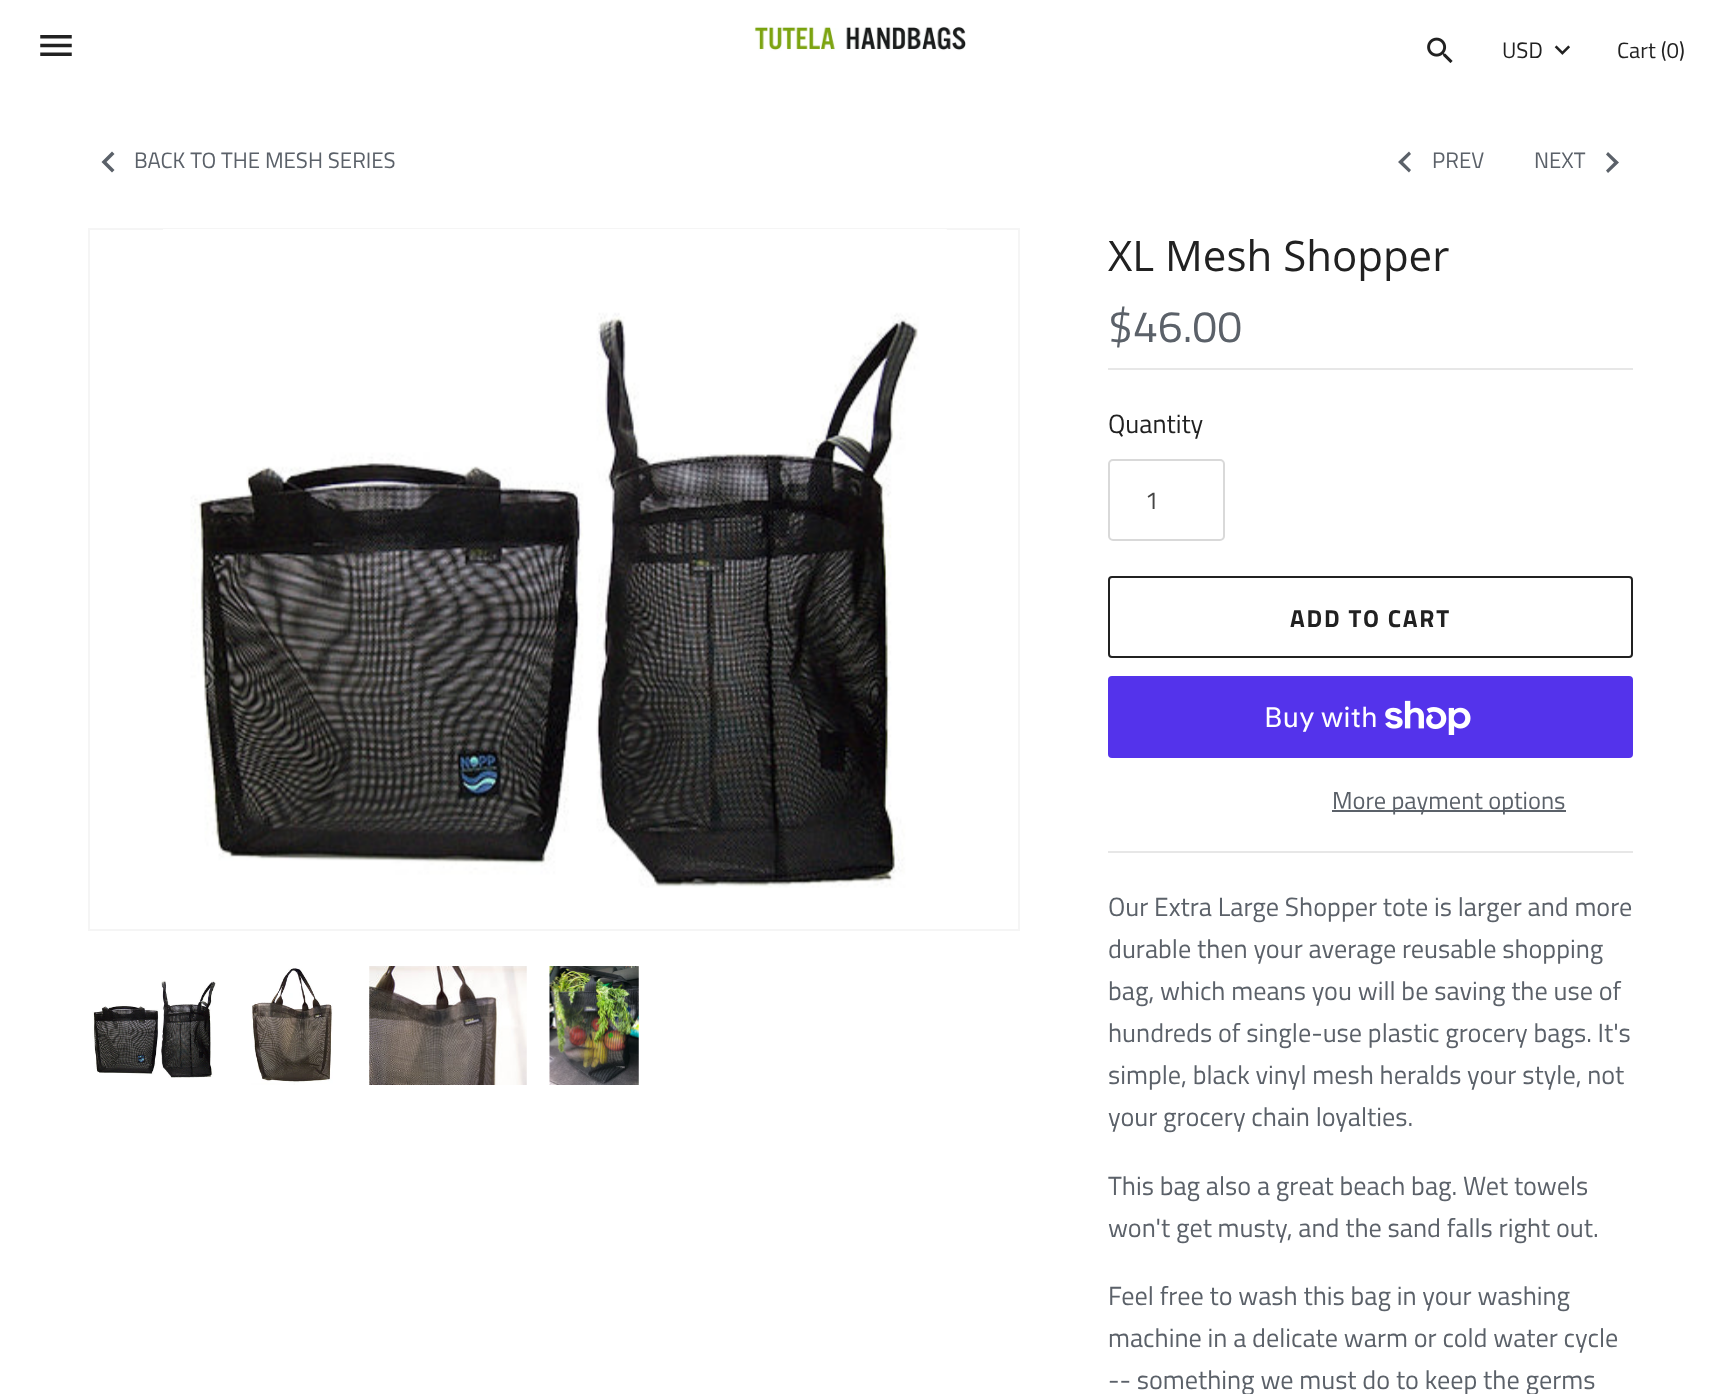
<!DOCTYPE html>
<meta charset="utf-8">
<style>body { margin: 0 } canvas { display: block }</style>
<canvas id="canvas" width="1719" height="1394"></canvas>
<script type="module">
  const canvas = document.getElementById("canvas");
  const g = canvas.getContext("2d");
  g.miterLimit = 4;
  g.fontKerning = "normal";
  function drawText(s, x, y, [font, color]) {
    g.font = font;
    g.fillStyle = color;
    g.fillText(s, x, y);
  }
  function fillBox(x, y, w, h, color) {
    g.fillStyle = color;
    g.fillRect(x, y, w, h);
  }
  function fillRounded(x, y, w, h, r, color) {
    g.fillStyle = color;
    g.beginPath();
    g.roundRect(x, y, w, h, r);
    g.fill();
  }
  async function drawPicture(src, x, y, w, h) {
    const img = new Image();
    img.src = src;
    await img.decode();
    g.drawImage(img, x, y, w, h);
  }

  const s1 = ["22.25px Titillium Web", "#212121"];
  const s2 = ["22.25px Titillium Web", "#5B6169"];
  const s3 = ["42px Open Sans", "#212121"];
  const s4 = ["44.5px Titillium Web", "#5B6169"];
  const s5 = ["26.25px Titillium Web", "#212121"];
  const s6 = ["24.5px Titillium Web", "#444444"];
  const s7 = ["bold 24.5px Titillium Web", "#212121"];
  const s8 = ["28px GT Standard", "#FFFFFF"];
  const s9 = ["24.5px Titillium Web", "#5B6169"];
  const s10 = ["26.25px Titillium Web", "#5B6169"];

  fillBox(0, 0, 1719, 1394, "#FFFFFF");
  await drawPicture("pic1.png", 40, 35, 32, 21);
  await drawPicture("pic2.png", 754, 26, 212, 25);
  await drawPicture("pic3.png", 1427, 37, 26, 26);
  await drawPicture("pic4.png", 1554, 45, 16, 10);
  drawText("USD", 1502, 58, s1);
  drawText("Cart (0)", 1617, 58, s1);
  drawText("BACK TO THE MESH SERIES", 134, 168, s2);
  g.beginPath();
  g.moveTo(114.5, 170);
  g.lineTo(106.5, 162);
  g.lineTo(114.5, 154);
  g.lineTo(112, 151.5);
  g.lineTo(101.5, 162);
  g.lineTo(112, 172.5);
  g.closePath();
  g.fill();
  drawText("PREV", 1432, 168, s2);
  g.beginPath();
  g.moveTo(1411, 170);
  g.lineTo(1403, 162);
  g.lineTo(1411, 154);
  g.lineTo(1409, 151.5);
  g.lineTo(1398, 162);
  g.lineTo(1409, 172.5);
  g.closePath();
  g.fill();
  drawText("NEXT", 1534, 168, s2);
  g.beginPath();
  g.moveTo(1606, 170.5);
  g.lineTo(1614, 162.5);
  g.lineTo(1606, 154.5);
  g.lineTo(1608, 152);
  g.lineTo(1619, 162.5);
  g.lineTo(1608, 173);
  g.closePath();
  g.fill();
  g.strokeStyle = "#F5F5F5";
  g.lineWidth = 2;
  g.strokeRect(89, 229, 930, 701);
  await drawPicture("pic5.png", 163, 229, 784, 659);
  await drawPicture("pic6.png", 92, 980, 124, 98);
  await drawPicture("pic7.png", 251, 968, 82, 117);
  await drawPicture("pic8.png", 369, 966, 158, 119);
  await drawPicture("pic9.png", 549, 966, 90, 119);
  drawText("XL Mesh Shopper", 1108, 271, s3);
  drawText("$46.00", 1108, 342, s4);
  fillBox(1108, 368, 525, 2, "#E7E7E7");
  drawText("Quantity", 1108, 433, s5);
  g.beginPath();
  g.roundRect(1109, 460, 115, 80, 4);
  g.strokeStyle = "#D9D9D9";
  g.stroke();
  drawText("1", 1145, 509, s6);
  g.beginPath();
  g.roundRect(1109, 577, 523, 80, 3);
  g.strokeStyle = "#212121";
  g.stroke();
  g.letterSpacing = "1.75px";
  drawText("ADD TO CART", 1290, 627, s7);
  fillRounded(1108, 676, 525, 82, 4, "#5433EB");
  g.letterSpacing = "0px";
  drawText("Buy with", 1264, 727, s8);
  await drawPicture("pic10.png", 1385, 700, 86, 35);
  fillBox(1332, 810, 234, 2, "#5B6169");
  drawText("More payment options", 1332, 809, s9);
  fillBox(1108, 851, 525, 2, "#E7E7E7");
  drawText("Our Extra Large Shopper tote is larger and more", 1108, 916, s10);
  drawText("durable then your average reusable shopping", 1108, 958, s10);
  drawText("bag, which means you will be saving the use of", 1108, 1000, s10);
  drawText("hundreds of single-use plastic grocery bags. It's", 1108, 1042, s10);
  drawText("simple, black vinyl mesh heralds your style, not", 1108, 1084, s10);
  drawText("your grocery chain loyalties.", 1108, 1126, s10);
  drawText("This bag also a great beach bag. Wet towels", 1108, 1195, s10);
  drawText("won't get musty, and the sand falls right out.", 1108, 1237, s10);
  drawText("Feel free to wash this bag in your washing", 1108, 1305, s10);
  drawText("machine in a delicate warm or cold water cycle", 1108, 1347, s10);
  drawText("-- something we must do to keep the germs", 1108, 1389, s10);
</script>
